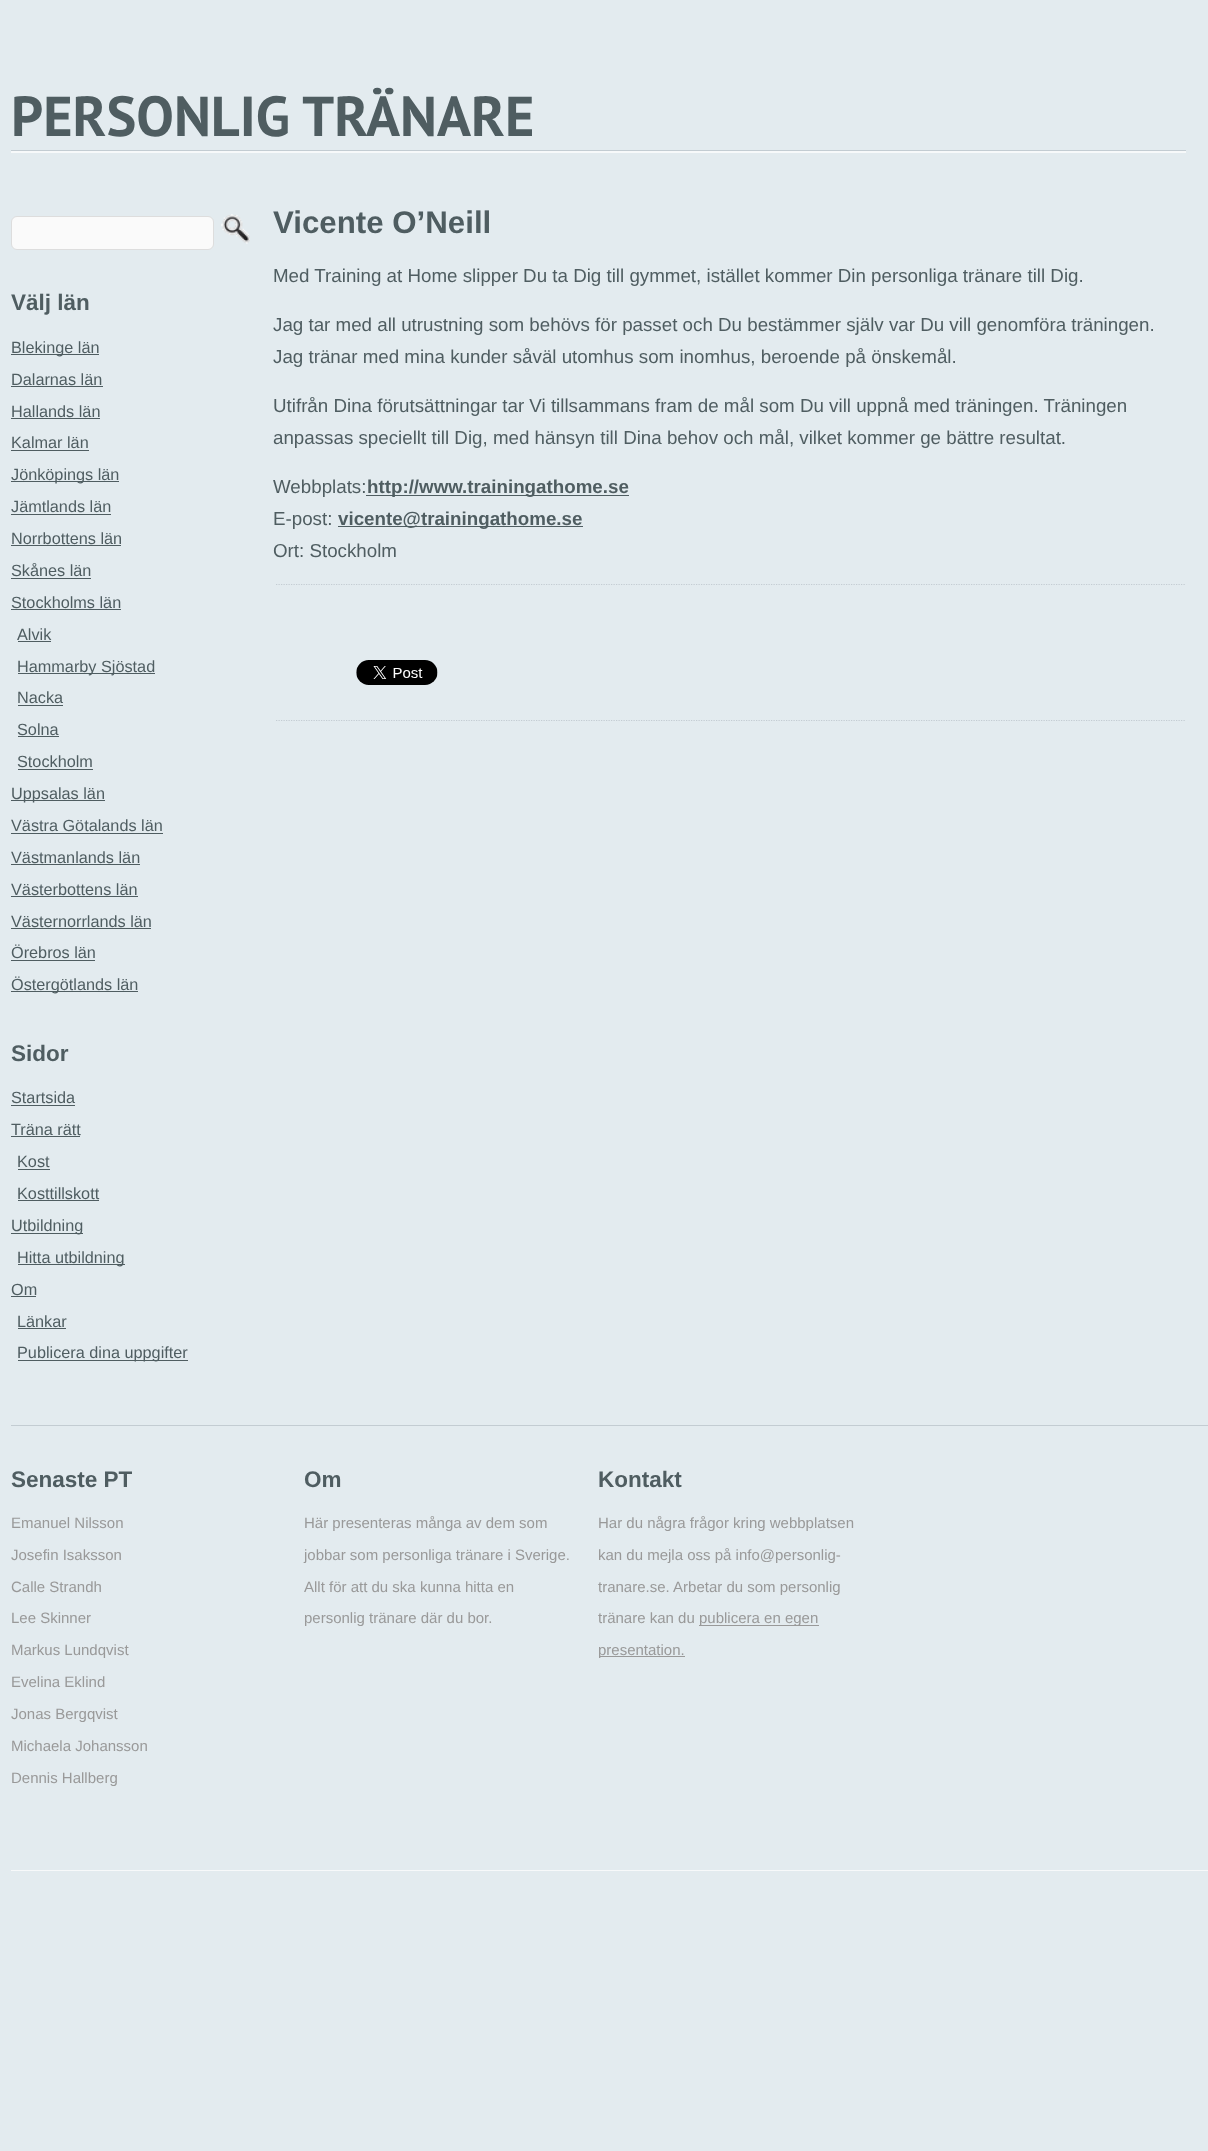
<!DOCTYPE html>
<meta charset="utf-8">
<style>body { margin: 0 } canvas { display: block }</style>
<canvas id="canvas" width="1208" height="2151"></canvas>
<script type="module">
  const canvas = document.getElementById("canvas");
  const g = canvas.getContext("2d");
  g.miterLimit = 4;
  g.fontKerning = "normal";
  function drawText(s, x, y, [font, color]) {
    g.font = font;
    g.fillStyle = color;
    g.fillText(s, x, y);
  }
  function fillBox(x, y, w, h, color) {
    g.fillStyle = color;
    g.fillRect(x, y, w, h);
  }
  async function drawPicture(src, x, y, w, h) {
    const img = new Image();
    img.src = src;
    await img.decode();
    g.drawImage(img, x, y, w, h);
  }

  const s1 = ["bold 56.25px PT Sans", "#4F5D61"];
  const s2 = ["bold 22.5px Liberation Sans", "#4F5D61"];
  const s3 = ["16.25px Liberation Sans", "#4F5D61"];
  const s4 = ["bold 31.25px Liberation Sans", "#4F5D61"];
  const s5 = ["18.75px Liberation Sans", "#4F5D61"];
  const s6 = ["bold 18.75px Liberation Sans", "#4F5D61"];
  const s7 = ["15px Liberation Sans", "#999999"];

  fillBox(0, 0, 1208, 2151, "#E3EBEF");
  g.fillStyle = "#F7F9FA";
  g.beginPath();
  g.moveTo(11, 89);
  g.lineTo(11, 153);
  g.lineTo(1186, 153);
  g.lineTo(1186, 151);
  g.lineTo(11, 151);
  g.closePath();
  g.fill();
  fillBox(11, 150, 1175, 1, "#C3CCD2");
  drawText("PERSONLIG TRÄNARE", 11, 136, s1);
  g.fillStyle = "#FAFAFA";
  g.beginPath();
  g.roundRect(11.5, 216.5, 202, 33, 5.5);
  g.fill();
  g.strokeStyle = "#DDDDDD";
  g.stroke();
  await drawPicture("pic1.png", 221, 214, 29, 30);
  drawText("Välj län", 11, 310, s2);
  fillBox(11, 354, 88, 1, "#4F5D61");
  drawText("Blekinge län", 11, 353, s3);
  drawText("Dalarnas län", 11, 385, s3);
  fillBox(11, 386, 92, 1, "#4F5D61");
  drawText("Hallands län", 11, 417, s3);
  fillBox(11, 418, 89, 1, "#4F5D61");
  drawText("Kalmar län", 11, 448, s3);
  fillBox(11, 450, 78, 1, "#4F5D61");
  fillBox(11, 481, 108, 1, "#4F5D61");
  drawText("Jönköpings län", 11, 480, s3);
  drawText("Jämtlands län", 11, 512, s3);
  fillBox(11, 514, 100, 1, "#4F5D61");
  drawText("Norrbottens län", 11, 544, s3);
  fillBox(11, 545, 110, 1, "#4F5D61");
  drawText("Skånes län", 11, 576, s3);
  fillBox(11, 578, 80, 1, "#4F5D61");
  drawText("Stockholms län", 11, 608, s3);
  fillBox(11, 609, 110, 1, "#4F5D61");
  drawText("Alvik", 17, 640, s3);
  fillBox(18, 641, 33, 1, "#4F5D61");
  fillBox(18, 673, 137, 1, "#4F5D61");
  drawText("Hammarby Sjöstad", 17, 672, s3);
  drawText("Nacka", 17, 703, s3);
  fillBox(18, 705, 45, 1, "#4F5D61");
  drawText("Solna", 17, 735, s3);
  fillBox(18, 736, 41, 1, "#4F5D61");
  drawText("Stockholm", 17, 767, s3);
  fillBox(18, 769, 75, 1, "#4F5D61");
  fillBox(11, 800, 94, 1, "#4F5D61");
  drawText("Uppsalas län", 11, 799, s3);
  drawText("Västra Götalands län", 11, 831, s3);
  fillBox(11, 833, 152, 1, "#4F5D61");
  drawText("Västmanlands län", 11, 863, s3);
  fillBox(11, 864, 129, 1, "#4F5D61");
  drawText("Västerbottens län", 11, 895, s3);
  fillBox(11, 896, 127, 1, "#4F5D61");
  drawText("Västernorrlands län", 11, 927, s3);
  fillBox(11, 928, 140, 1, "#4F5D61");
  drawText("Örebros län", 11, 958, s3);
  fillBox(11, 960, 84, 1, "#4F5D61");
  fillBox(11, 991, 127, 1, "#4F5D61");
  drawText("Östergötlands län", 11, 990, s3);
  drawText("Sidor", 11, 1061, s2);
  drawText("Startsida", 11, 1103, s3);
  fillBox(11, 1105, 64, 1, "#4F5D61");
  drawText("Träna rätt", 11, 1135, s3);
  fillBox(11, 1136, 69, 1, "#4F5D61");
  drawText("Kost", 17, 1167, s3);
  fillBox(18, 1169, 32, 1, "#4F5D61");
  drawText("Kosttillskott", 17, 1199, s3);
  fillBox(18, 1200, 81, 1, "#4F5D61");
  fillBox(11, 1233, 72, 1, "#4F5D61");
  drawText("Utbildning", 11, 1231, s3);
  fillBox(18, 1264, 107, 1, "#4F5D61");
  drawText("Hitta utbildning", 17, 1263, s3);
  drawText("Om", 11, 1295, s3);
  fillBox(11, 1296, 25, 1, "#4F5D61");
  drawText("Länkar", 17, 1327, s3);
  fillBox(18, 1328, 48, 1, "#4F5D61");
  fillBox(18, 1360, 170, 1, "#4F5D61");
  drawText("Publicera dina uppgifter", 17, 1358, s3);
  drawText("Vicente O’Neill", 273, 233, s4);
  drawText("Med Training at Home slipper Du ta Dig till gymmet, istället kommer Din personliga tränare till Dig.", 273, 282, s5);
  drawText("Jag tar med all utrustning som behövs för passet och Du bestämmer själv var Du vill genomföra träningen.", 273, 331, s5);
  drawText("Jag tränar med mina kunder såväl utomhus som inomhus, beroende på önskemål.", 273, 363, s5);
  drawText("Utifrån Dina förutsättningar tar Vi tillsammans fram de mål som Du vill uppnå med träningen. Träningen", 273, 412, s5);
  drawText("anpassas speciellt till Dig, med hänsyn till Dina behov och mål, vilket kommer ge bättre resultat.", 273, 444, s5);
  drawText("Webbplats:", 273, 493, s5);
  fillBox(366, 495, 263, 1, "#4F5D61");
  drawText("http://www.trainingathome.se", 367, 493, s6);
  drawText("E-post:", 273, 525, s5);
  fillBox(338, 526, 245, 1, "#4F5D61");
  drawText("vicente@trainingathome.se", 338, 525, s6);
  drawText("Ort: Stockholm", 273, 557, s5);
  g.beginPath();
  g.moveTo(276, 584.5);
  g.lineTo(1186, 584.5);
  g.strokeStyle = "#C3CCD2";
  g.lineWidth = 1.2;
  g.setLineDash([1.25, 1.25]);
  g.stroke();
  g.beginPath();
  g.moveTo(276, 720.5);
  g.lineTo(1186, 720.5);
  g.stroke();
  await drawPicture("pic2.png", 356, 660, 82, 25);
  g.fillStyle = "#F7F9FA";
  g.beginPath();
  g.moveTo(11, 1426);
  g.lineTo(11, 1871);
  g.lineTo(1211, 1871);
  g.lineTo(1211, 1870);
  g.lineTo(11, 1870);
  g.closePath();
  g.fill();
  fillBox(11, 1425, 1197, 1, "#C3CCD2");
  drawText("Senaste PT", 11, 1487, s2);
  drawText("Emanuel Nilsson", 11, 1528, s7);
  drawText("Josefin Isaksson", 11, 1560, s7);
  drawText("Calle Strandh", 11, 1592, s7);
  drawText("Lee Skinner", 11, 1623, s7);
  drawText("Markus Lundqvist", 11, 1655, s7);
  drawText("Evelina Eklind", 11, 1687, s7);
  drawText("Jonas Bergqvist", 11, 1719, s7);
  drawText("Michaela Johansson", 11, 1751, s7);
  drawText("Dennis Hallberg", 11, 1783, s7);
  drawText("Om", 304, 1487, s2);
  drawText("Här presenteras många av dem som", 304, 1528, s7);
  drawText("jobbar som personliga tränare i Sverige.", 304, 1560, s7);
  drawText("Allt för att du ska kunna hitta en", 304, 1592, s7);
  drawText("personlig tränare där du bor.", 304, 1623, s7);
  drawText("Kontakt", 598, 1487, s2);
  drawText("Har du några frågor kring webbplatsen", 598, 1528, s7);
  drawText("kan du mejla oss på info@personlig-", 598, 1560, s7);
  drawText("tranare.se. Arbetar du som personlig", 598, 1592, s7);
  drawText("tränare kan du", 598, 1623, s7);
  fillBox(699, 1625, 120, 1, "#999999");
  drawText("publicera en egen", 699, 1623, s7);
  fillBox(599, 1656, 86, 1, "#999999");
  drawText("presentation.", 598, 1655, s7);
</script>
